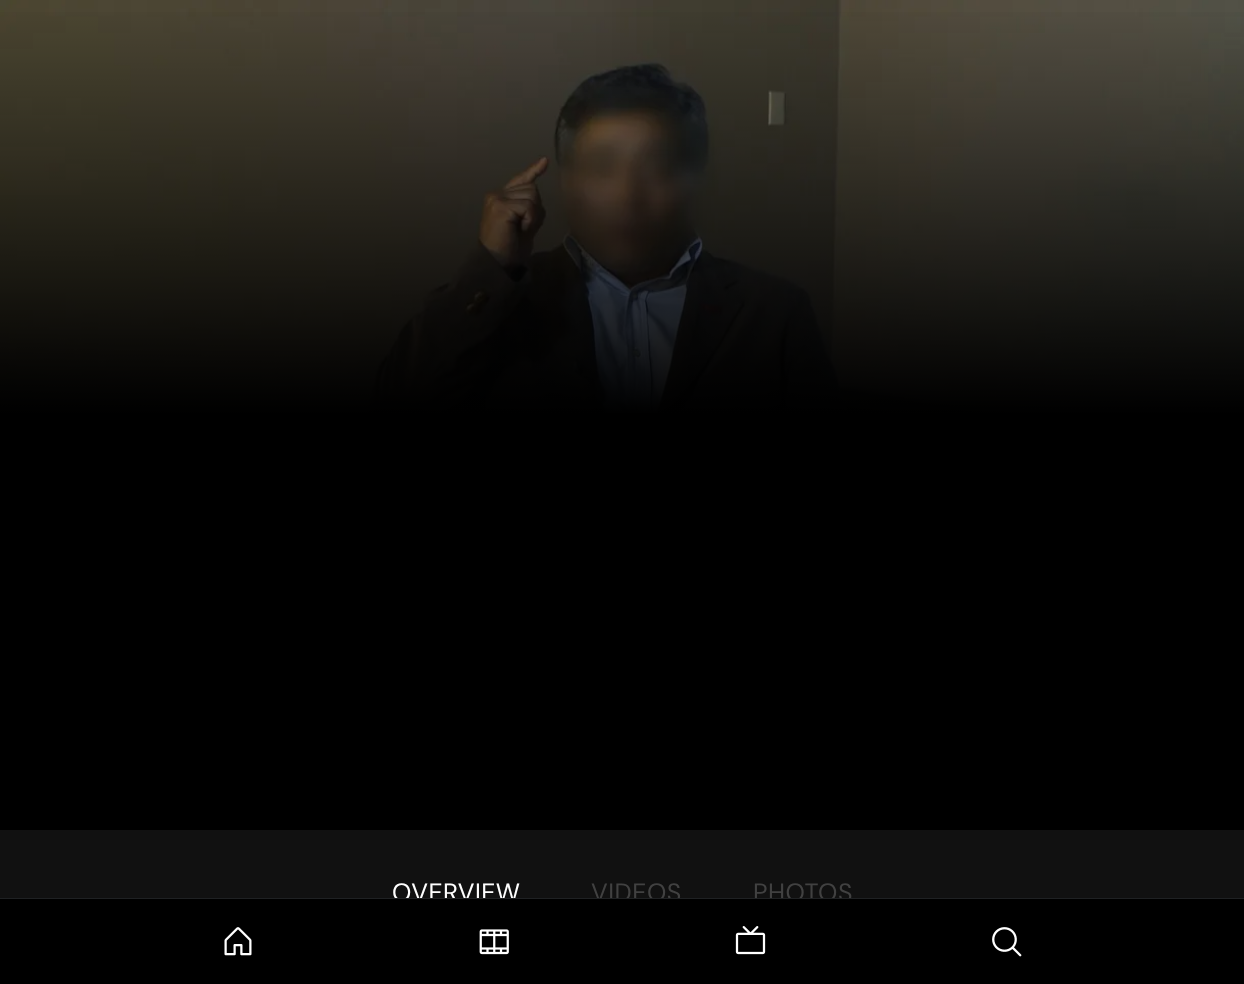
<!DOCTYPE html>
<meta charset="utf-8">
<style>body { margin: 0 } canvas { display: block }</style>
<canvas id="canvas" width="1244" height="984"></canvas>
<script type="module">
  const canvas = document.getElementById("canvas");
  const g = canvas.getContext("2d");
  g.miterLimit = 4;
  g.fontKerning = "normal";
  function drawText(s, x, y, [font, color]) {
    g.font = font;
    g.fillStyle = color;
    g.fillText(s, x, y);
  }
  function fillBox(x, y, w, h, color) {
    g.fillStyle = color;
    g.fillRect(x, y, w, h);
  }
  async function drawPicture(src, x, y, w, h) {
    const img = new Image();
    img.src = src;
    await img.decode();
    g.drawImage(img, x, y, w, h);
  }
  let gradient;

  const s1 = ["25px DM Sans", "#FFFFFF"];
  const s2 = ["25px DM Sans", "#414141"];

  fillBox(0, 0, 1244, 984, "#111111");
  await drawPicture("pic1.png", 0, 0, 1244, 413);
  gradient = g.createLinearGradient(623, 830, 623, 0);
  gradient.addColorStop(0, "#000000");
  gradient.addColorStop(0.5, "#000000");
  gradient.addColorStop(1, "rgba(0, 0, 0, 0)");
  g.fillStyle = gradient;
  g.fillRect(0, 12, 1244, 818);
  g.save();
  g.beginPath();
  g.rect(0, 0, 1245, 898);
  g.clip();
  g.letterSpacing = "0.5px";
  drawText("OVERVIEW", 392, 901, s1);
  drawText("VIDEOS", 591, 901, s2);
  drawText("PHOTOS", 753, 901, s2);
  g.restore();
  fillBox(0, 899, 1244, 85, "#000000");
  fillBox(0, 898, 1244, 1, "#1F2123");
  await drawPicture("pic2.png", 224, 927, 28, 29);
  await drawPicture("pic3.png", 479, 929, 30, 26);
  await drawPicture("pic4.png", 735, 926, 31, 29);
  await drawPicture("pic5.png", 992, 927, 30, 30);
</script>
